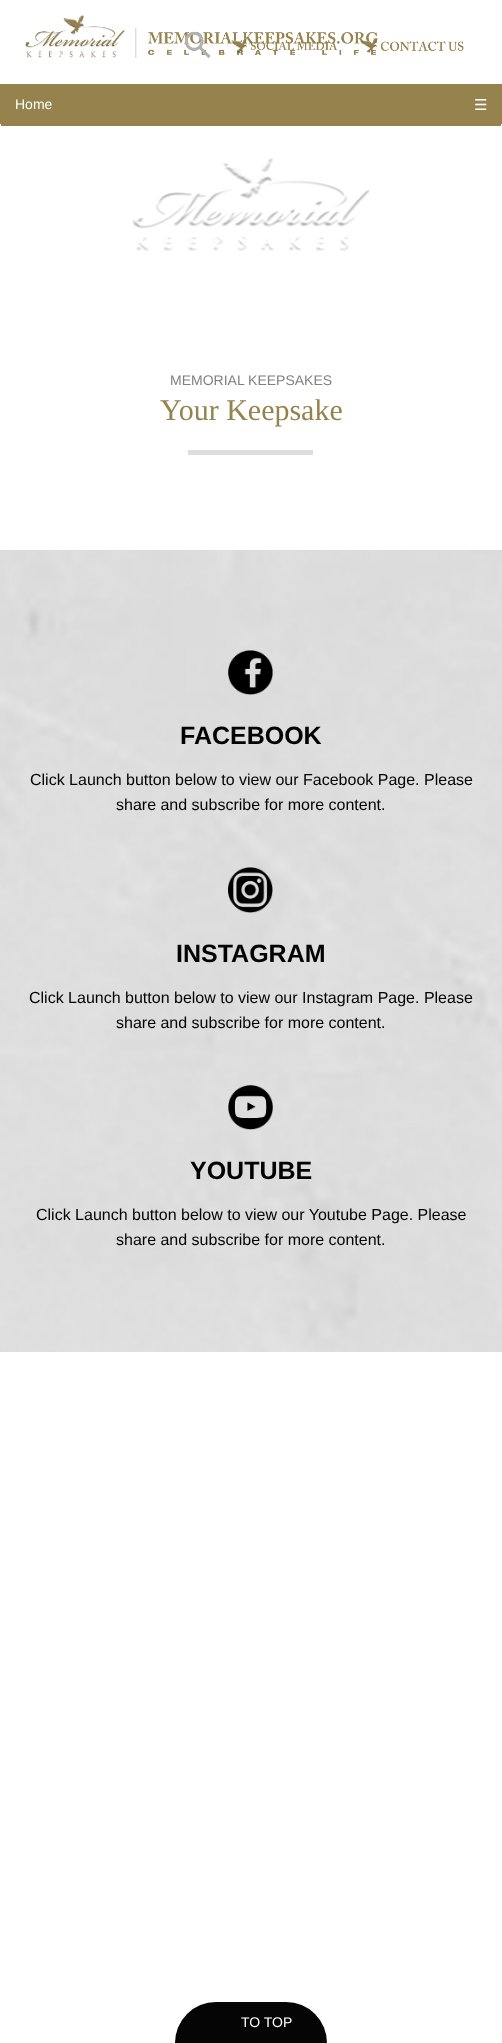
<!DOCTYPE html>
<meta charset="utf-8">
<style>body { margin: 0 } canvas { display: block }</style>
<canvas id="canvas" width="502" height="2043"></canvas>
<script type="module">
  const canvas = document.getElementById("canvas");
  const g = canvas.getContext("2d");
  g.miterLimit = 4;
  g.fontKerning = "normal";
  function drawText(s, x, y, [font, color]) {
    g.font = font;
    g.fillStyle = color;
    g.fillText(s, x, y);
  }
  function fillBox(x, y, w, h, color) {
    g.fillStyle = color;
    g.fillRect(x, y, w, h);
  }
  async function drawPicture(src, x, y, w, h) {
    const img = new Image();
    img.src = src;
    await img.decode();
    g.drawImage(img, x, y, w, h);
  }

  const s1 = ["14px Liberation Sans", "#FFFFFF"];
  const s2 = ["15px DejaVu Sans", "#FFFFFF"];
  const s3 = ["14px Liberation Sans", "#808080"];
  const s4 = ["30px Liberation Serif", "#95824D"];
  const s5 = ["bold 25px Liberation Sans", "#020202"];
  const s6 = ["16px Liberation Sans", "#020202"];

  fillBox(0, 0, 502, 2043, "#FFFFFF");
  await drawPicture("pic1.png", 25, 15, 100, 43);
  await drawPicture("pic2.png", 135, 27, 243, 31);
  await drawPicture("pic3.png", 184, 31, 27, 27);
  await drawPicture("pic4.png", 231, 38, 107, 15);
  await drawPicture("pic5.png", 361, 38, 103, 15);
  fillBox(0, 84, 502, 40, "#95824D");
  fillBox(1, 124, 500, 2, "#95824D");
  drawText("Home", 15, 109, s1);
  drawText("☰", 474, 110, s2);
  await drawPicture("pic6.png", 132, 158, 238, 93);
  drawText("MEMORIAL KEEPSAKES", 170, 385, s3);
  drawText("Your Keepsake", 160, 420, s4);
  fillBox(188, 450, 125, 5, "#DEDEDE");
  await drawPicture("pic7.png", 0, 550, 502, 802);
  await drawPicture("pic8.png", 228, 650, 45, 45);
  drawText("FACEBOOK", 180, 744, s5);
  drawText("Click Launch button below to view our Facebook Page. Please", 30, 785, s6);
  drawText("share and subscribe for more content.", 116, 810, s6);
  await drawPicture("pic9.png", 228, 867, 45, 46);
  drawText("INSTAGRAM", 176, 962, s5);
  drawText("Click Launch button below to view our Instagram Page. Please", 29, 1003, s6);
  drawText("share and subscribe for more content.", 116, 1028, s6);
  await drawPicture("pic10.png", 228, 1085, 45, 45);
  drawText("YOUTUBE", 190, 1179, s5);
  drawText("Click Launch button below to view our Youtube Page. Please", 36, 1220, s6);
  drawText("share and subscribe for more content.", 116, 1245, s6);
  g.fillStyle = "#050505";
  g.beginPath();
  g.roundRect(175, 2002, 152, 41, [41, 41, 0, 0]);
  g.fill();
  drawText("TO TOP", 241, 2027, s1);
</script>
